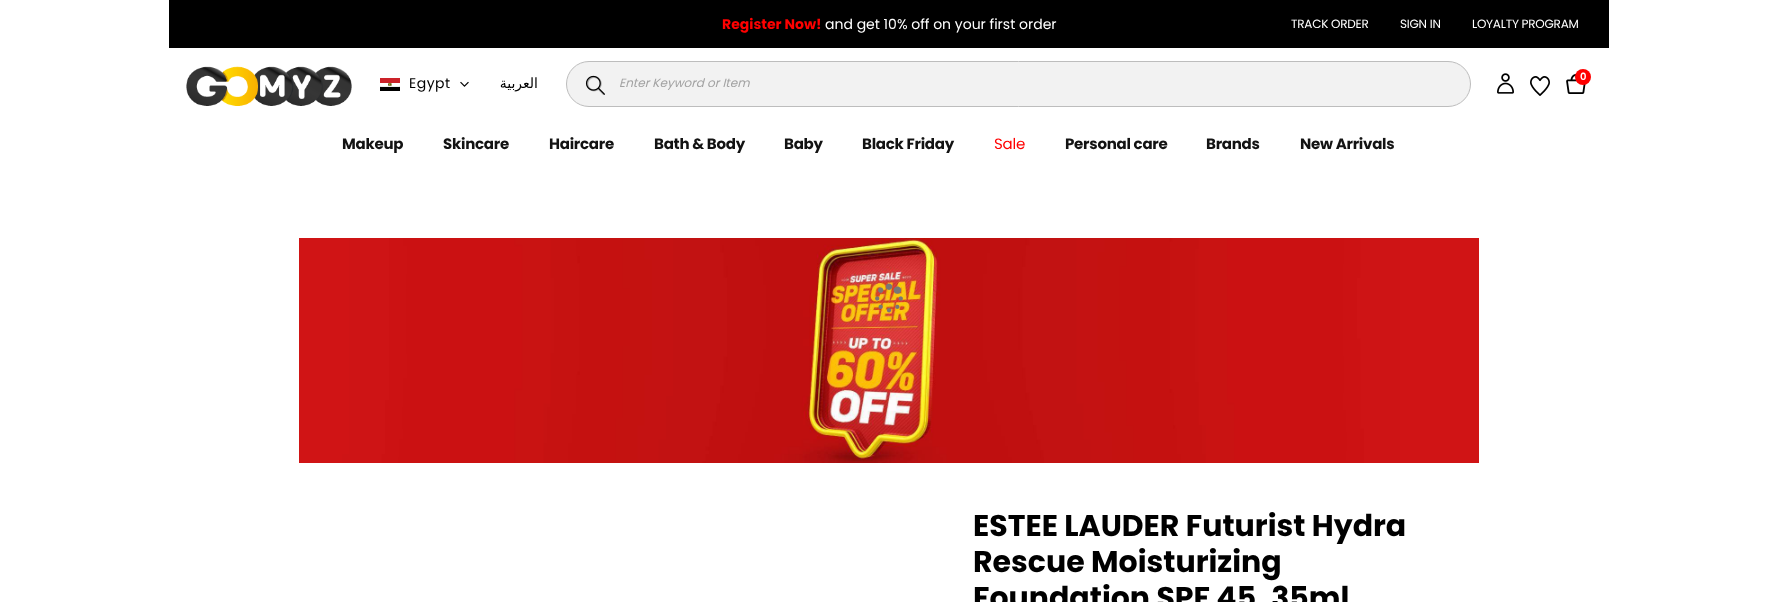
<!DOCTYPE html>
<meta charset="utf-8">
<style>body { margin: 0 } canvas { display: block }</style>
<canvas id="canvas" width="1778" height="602"></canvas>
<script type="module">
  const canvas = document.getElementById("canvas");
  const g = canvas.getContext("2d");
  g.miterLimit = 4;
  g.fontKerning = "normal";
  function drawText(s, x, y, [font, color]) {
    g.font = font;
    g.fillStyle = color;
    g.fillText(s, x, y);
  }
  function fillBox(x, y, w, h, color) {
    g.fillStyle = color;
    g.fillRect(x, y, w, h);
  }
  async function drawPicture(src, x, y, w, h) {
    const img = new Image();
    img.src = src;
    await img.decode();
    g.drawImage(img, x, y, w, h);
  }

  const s1 = ["bold 14px Poppins", "#FF0000"];
  const s2 = ["14px Poppins", "#FFFFFF"];
  const s3 = ["12px Poppins", "#FFFFFF"];
  const s4 = ["14px Poppins", "#000000"];
  const s5 = ["14px DejaVu Sans", "#000000"];
  const s6 = ["italic 12px Poppins", "#A2A2A2"];
  const s7 = ["600 10px Poppins", "#FFFFFF"];
  const s8 = ["bold 15px Poppins", "#131313"];
  const s9 = ["15px Poppins", "#FF0000"];
  const s10 = ["bold 30px Poppins", "#000000"];

  fillBox(0, 0, 1778, 602, "#FFFFFF");
  fillBox(169, 0, 1440, 48, "#000000");
  drawText("Register Now!", 722, 29, s1);
  drawText("and get 10% off on your first order", 825, 29, s2);
  g.letterSpacing = "-0.25px";
  drawText("TRACK ORDER", 1291, 28, s3);
  drawText("SIGN IN", 1400, 28, s3);
  drawText("LOYALTY PROGRAM", 1472, 28, s3);
  await drawPicture("pic1.png", 186, 66, 166, 40);
  await drawPicture("pic2.png", 380, 78, 20, 13);
  g.letterSpacing = "0.5px";
  drawText("Egypt", 409, 88, s4);
  await drawPicture("pic3.png", 460, 81, 9, 6);
  g.letterSpacing = "0px";
  g.direction = "rtl";
  drawText("العربية", 538, 88, s5);
  g.fillStyle = "#F2F2F2";
  g.beginPath();
  g.roundRect(566.5, 61.5, 904, 45, 22.5);
  g.fill();
  g.strokeStyle = "#BDBDBD";
  g.stroke();
  await drawPicture("pic4.png", 586, 76, 19, 19);
  await drawPicture("pic5.png", 585, 75, 20, 20);
  g.direction = "ltr";
  drawText("Enter Keyword or Item", 619, 87, s6);
  await drawPicture("pic6.png", 1497, 73, 17, 21);
  await drawPicture("pic7.png", 1530, 76, 20, 20);
  await drawPicture("pic8.png", 1566, 74, 20, 20);
  g.fillStyle = "#FF0000";
  g.beginPath();
  g.arc(1583, 77, 8, 0, Math.PI * 2);
  g.fill();
  drawText("0", 1580, 80, s7);
  g.letterSpacing = "-0.25px";
  drawText("Makeup", 342, 149, s8);
  drawText("Skincare", 443, 149, s8);
  drawText("Haircare", 549, 149, s8);
  drawText("Bath & Body", 654, 149, s8);
  drawText("Baby", 784, 149, s8);
  drawText("Black Friday", 862, 149, s8);
  drawText("Sale", 994, 149, s9);
  drawText("Personal care", 1065, 149, s8);
  drawText("Brands", 1206, 149, s8);
  drawText("New Arrivals", 1300, 149, s8);
  await drawPicture("pic9.png", 299, 238, 1180, 225);
  await drawPicture("pic10.png", 875, 283, 28, 30);
  g.letterSpacing = "0px";
  drawText("ESTEE LAUDER Futurist Hydra", 973, 536, s10);
  drawText("Rescue Moisturizing", 973, 572, s10);
  drawText("Foundation SPF 45, 35ml", 973, 608, s10);
</script>
